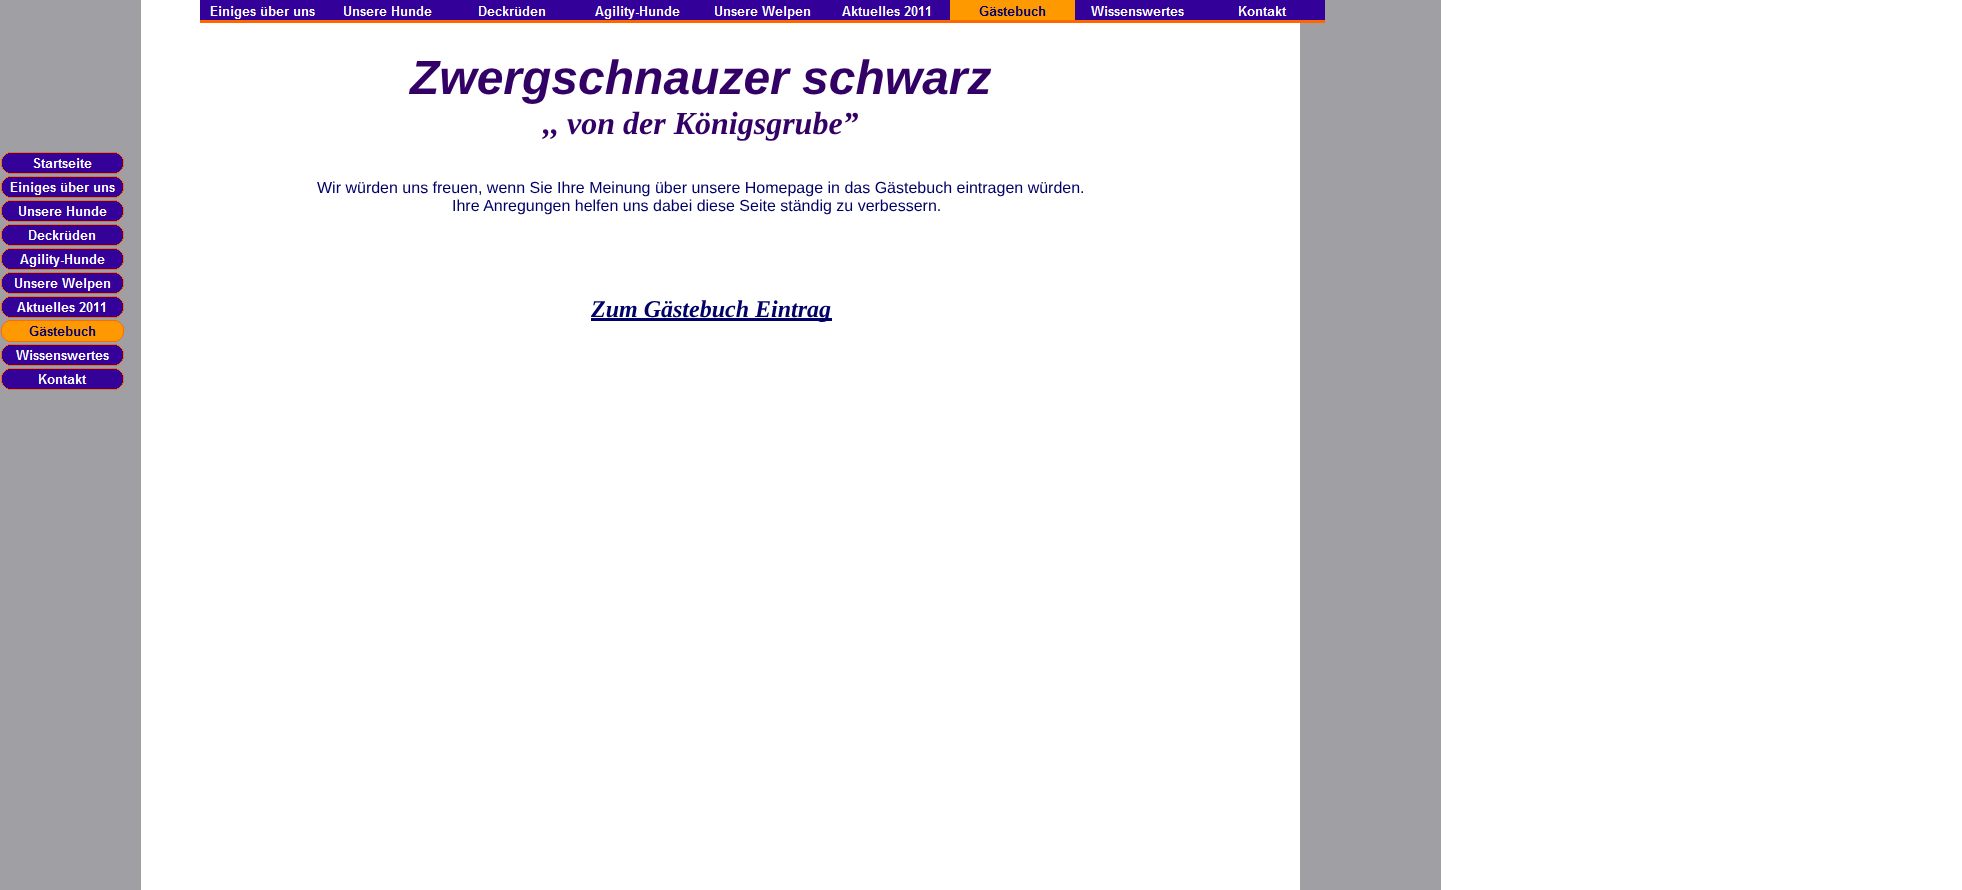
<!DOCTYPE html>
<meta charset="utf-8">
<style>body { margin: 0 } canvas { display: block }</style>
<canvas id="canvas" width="1962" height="890"></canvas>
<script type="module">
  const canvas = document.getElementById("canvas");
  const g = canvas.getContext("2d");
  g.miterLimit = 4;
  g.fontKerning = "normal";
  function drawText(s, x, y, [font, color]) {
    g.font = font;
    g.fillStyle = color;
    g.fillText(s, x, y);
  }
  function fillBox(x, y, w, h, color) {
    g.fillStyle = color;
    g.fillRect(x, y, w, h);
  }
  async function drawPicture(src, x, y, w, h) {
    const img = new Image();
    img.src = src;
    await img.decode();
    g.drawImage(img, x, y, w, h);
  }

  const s1 = ["italic bold 48px Liberation Sans", "#330066"];
  const s2 = ["italic bold 32px Liberation Serif", "#330066"];
  const s3 = ["16px Liberation Sans", "#000066"];
  const s4 = ["italic bold 24px Liberation Serif", "#000066"];

  fillBox(0, 0, 1962, 890, "#FFFFFF");
  await drawPicture("pic1.png", 0, 0, 1441, 890);
  await drawPicture("pic2.png", 1, 152, 123, 22);
  await drawPicture("pic3.png", 1, 176, 123, 22);
  await drawPicture("pic4.png", 1, 200, 123, 22);
  await drawPicture("pic5.png", 1, 224, 123, 22);
  await drawPicture("pic6.png", 1, 248, 123, 22);
  await drawPicture("pic7.png", 1, 272, 123, 22);
  await drawPicture("pic8.png", 1, 296, 123, 22);
  await drawPicture("pic9.png", 1, 320, 123, 22);
  await drawPicture("pic10.png", 1, 344, 123, 22);
  await drawPicture("pic11.png", 1, 368, 123, 22);
  await drawPicture("pic12.png", 200, 0, 125, 23);
  await drawPicture("pic13.png", 325, 0, 125, 23);
  await drawPicture("pic14.png", 450, 0, 125, 23);
  await drawPicture("pic15.png", 575, 0, 125, 23);
  await drawPicture("pic16.png", 700, 0, 125, 23);
  await drawPicture("pic17.png", 825, 0, 125, 23);
  await drawPicture("pic18.png", 950, 0, 125, 23);
  await drawPicture("pic19.png", 1075, 0, 125, 23);
  await drawPicture("pic20.png", 1200, 0, 125, 23);
  drawText("Zwergschnauzer schwarz", 410, 94, s1);
  drawText(",, von der Königsgrube”", 543, 134, s2);
  drawText("Wir würden uns freuen, wenn Sie Ihre Meinung über unsere Homepage in das Gästebuch eintragen würden.", 317, 193, s3);
  drawText("Ihre Anregungen helfen uns dabei diese Seite ständig zu verbessern.", 452, 211, s3);
  fillBox(591, 318, 241, 3, "#000066");
  drawText("Zum Gästebuch Eintrag", 591, 317, s4);
</script>
